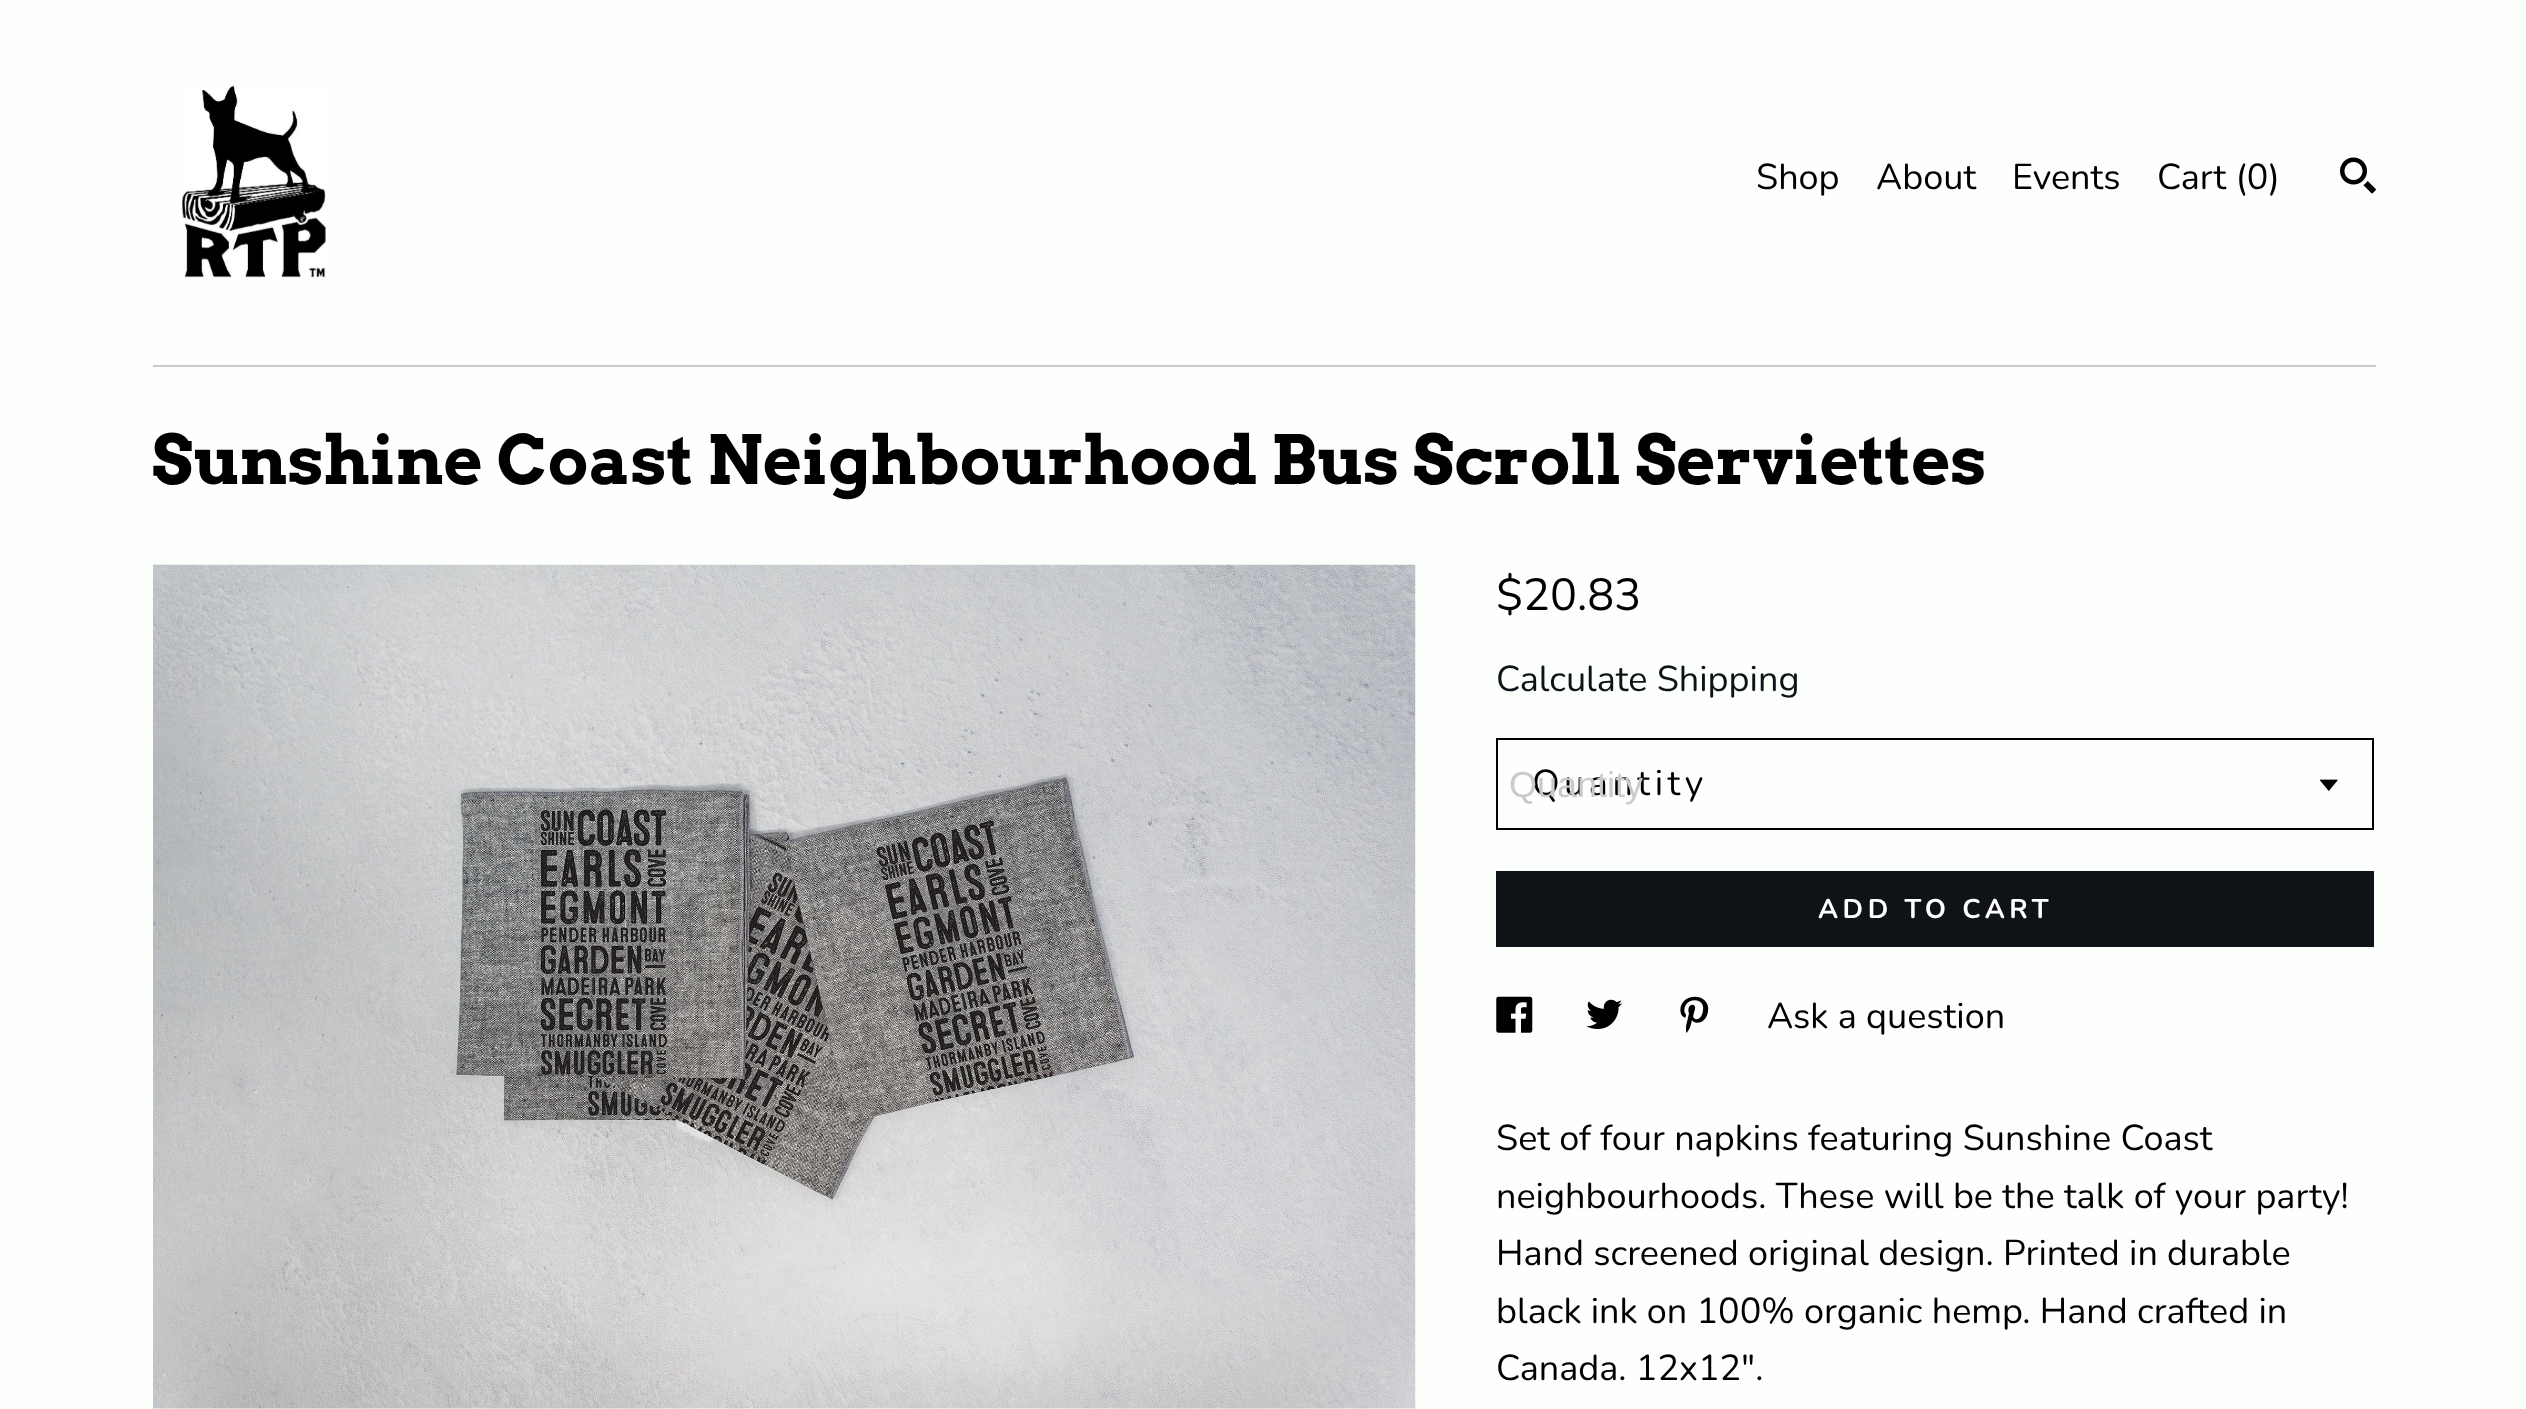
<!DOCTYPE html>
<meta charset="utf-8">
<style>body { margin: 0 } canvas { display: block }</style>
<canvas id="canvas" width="2526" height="1409"></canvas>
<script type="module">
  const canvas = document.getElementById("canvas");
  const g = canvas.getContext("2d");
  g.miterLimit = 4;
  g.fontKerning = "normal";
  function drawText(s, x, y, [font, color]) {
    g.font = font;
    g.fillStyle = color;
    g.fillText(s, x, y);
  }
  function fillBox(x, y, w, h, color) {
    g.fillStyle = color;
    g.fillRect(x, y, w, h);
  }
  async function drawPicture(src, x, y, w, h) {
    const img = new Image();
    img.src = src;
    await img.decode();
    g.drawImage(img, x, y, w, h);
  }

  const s1 = ["36px Nunito", "#000000"];
  const s2 = ["bold 67.5px Arvo", "#000000"];
  const s3 = ["45px Nunito", "#000000"];
  const s4 = ["36px Nunito", "#0F1217"];
  const s5 = ["36px Liberation Sans", "#CACACA"];
  const s6 = ["bold 27px Nunito", "#FFFFFF"];

  fillBox(0, 0, 2526, 1409, "#FDFFFD");
  await drawPicture("pic1.png", 182, 85, 144, 193);
  drawText("Shop", 1756, 189, s1);
  drawText("About", 1876, 189, s1);
  drawText("Events", 2012, 189, s1);
  drawText("Cart (0)", 2157, 189, s1);
  await drawPicture("pic2.png", 2340, 157, 36, 37);
  fillBox(153, 365, 2223, 2, "#CACCCA");
  drawText("Sunshine Coast Neighbourhood Bus Scroll Serviettes", 152, 484, s2);
  await drawPicture("pic3.png", 153, 564, 1263, 845);
  drawText("$20.83", 1496, 610, s3);
  drawText("Calculate Shipping", 1496, 691, s4);
  g.strokeStyle = "#000000";
  g.lineWidth = 2;
  g.strokeRect(1497, 739, 876, 90);
  g.letterSpacing = "4.5px";
  drawText("Quantity", 1532, 795, s1);
  g.letterSpacing = "0px";
  drawText("Quantity", 1509, 797, s5);
  await drawPicture("pic4.png", 2319, 779, 19, 12);
  fillBox(1496, 871, 878, 76, "#0F1217");
  g.letterSpacing = "4.5px";
  drawText("ADD TO CART", 1818, 918, s6);
  await drawPicture("pic5.png", 1496, 996, 37, 37);
  await drawPicture("pic6.png", 1586, 999, 37, 30);
  await drawPicture("pic7.png", 1680, 996, 29, 37);
  g.letterSpacing = "0px";
  drawText("Ask a question", 1767, 1028, s1);
  drawText("Set of four napkins featuring Sunshine Coast", 1496, 1150, s1);
  drawText("neighbourhoods. These will be the talk of your party!", 1496, 1208, s1);
  drawText("Hand screened original design. Printed in durable", 1496, 1265, s1);
  drawText("black ink on 100% organic hemp. Hand crafted in", 1496, 1323, s1);
  drawText("Canada. 12x12\".", 1496, 1380, s1);
</script>
